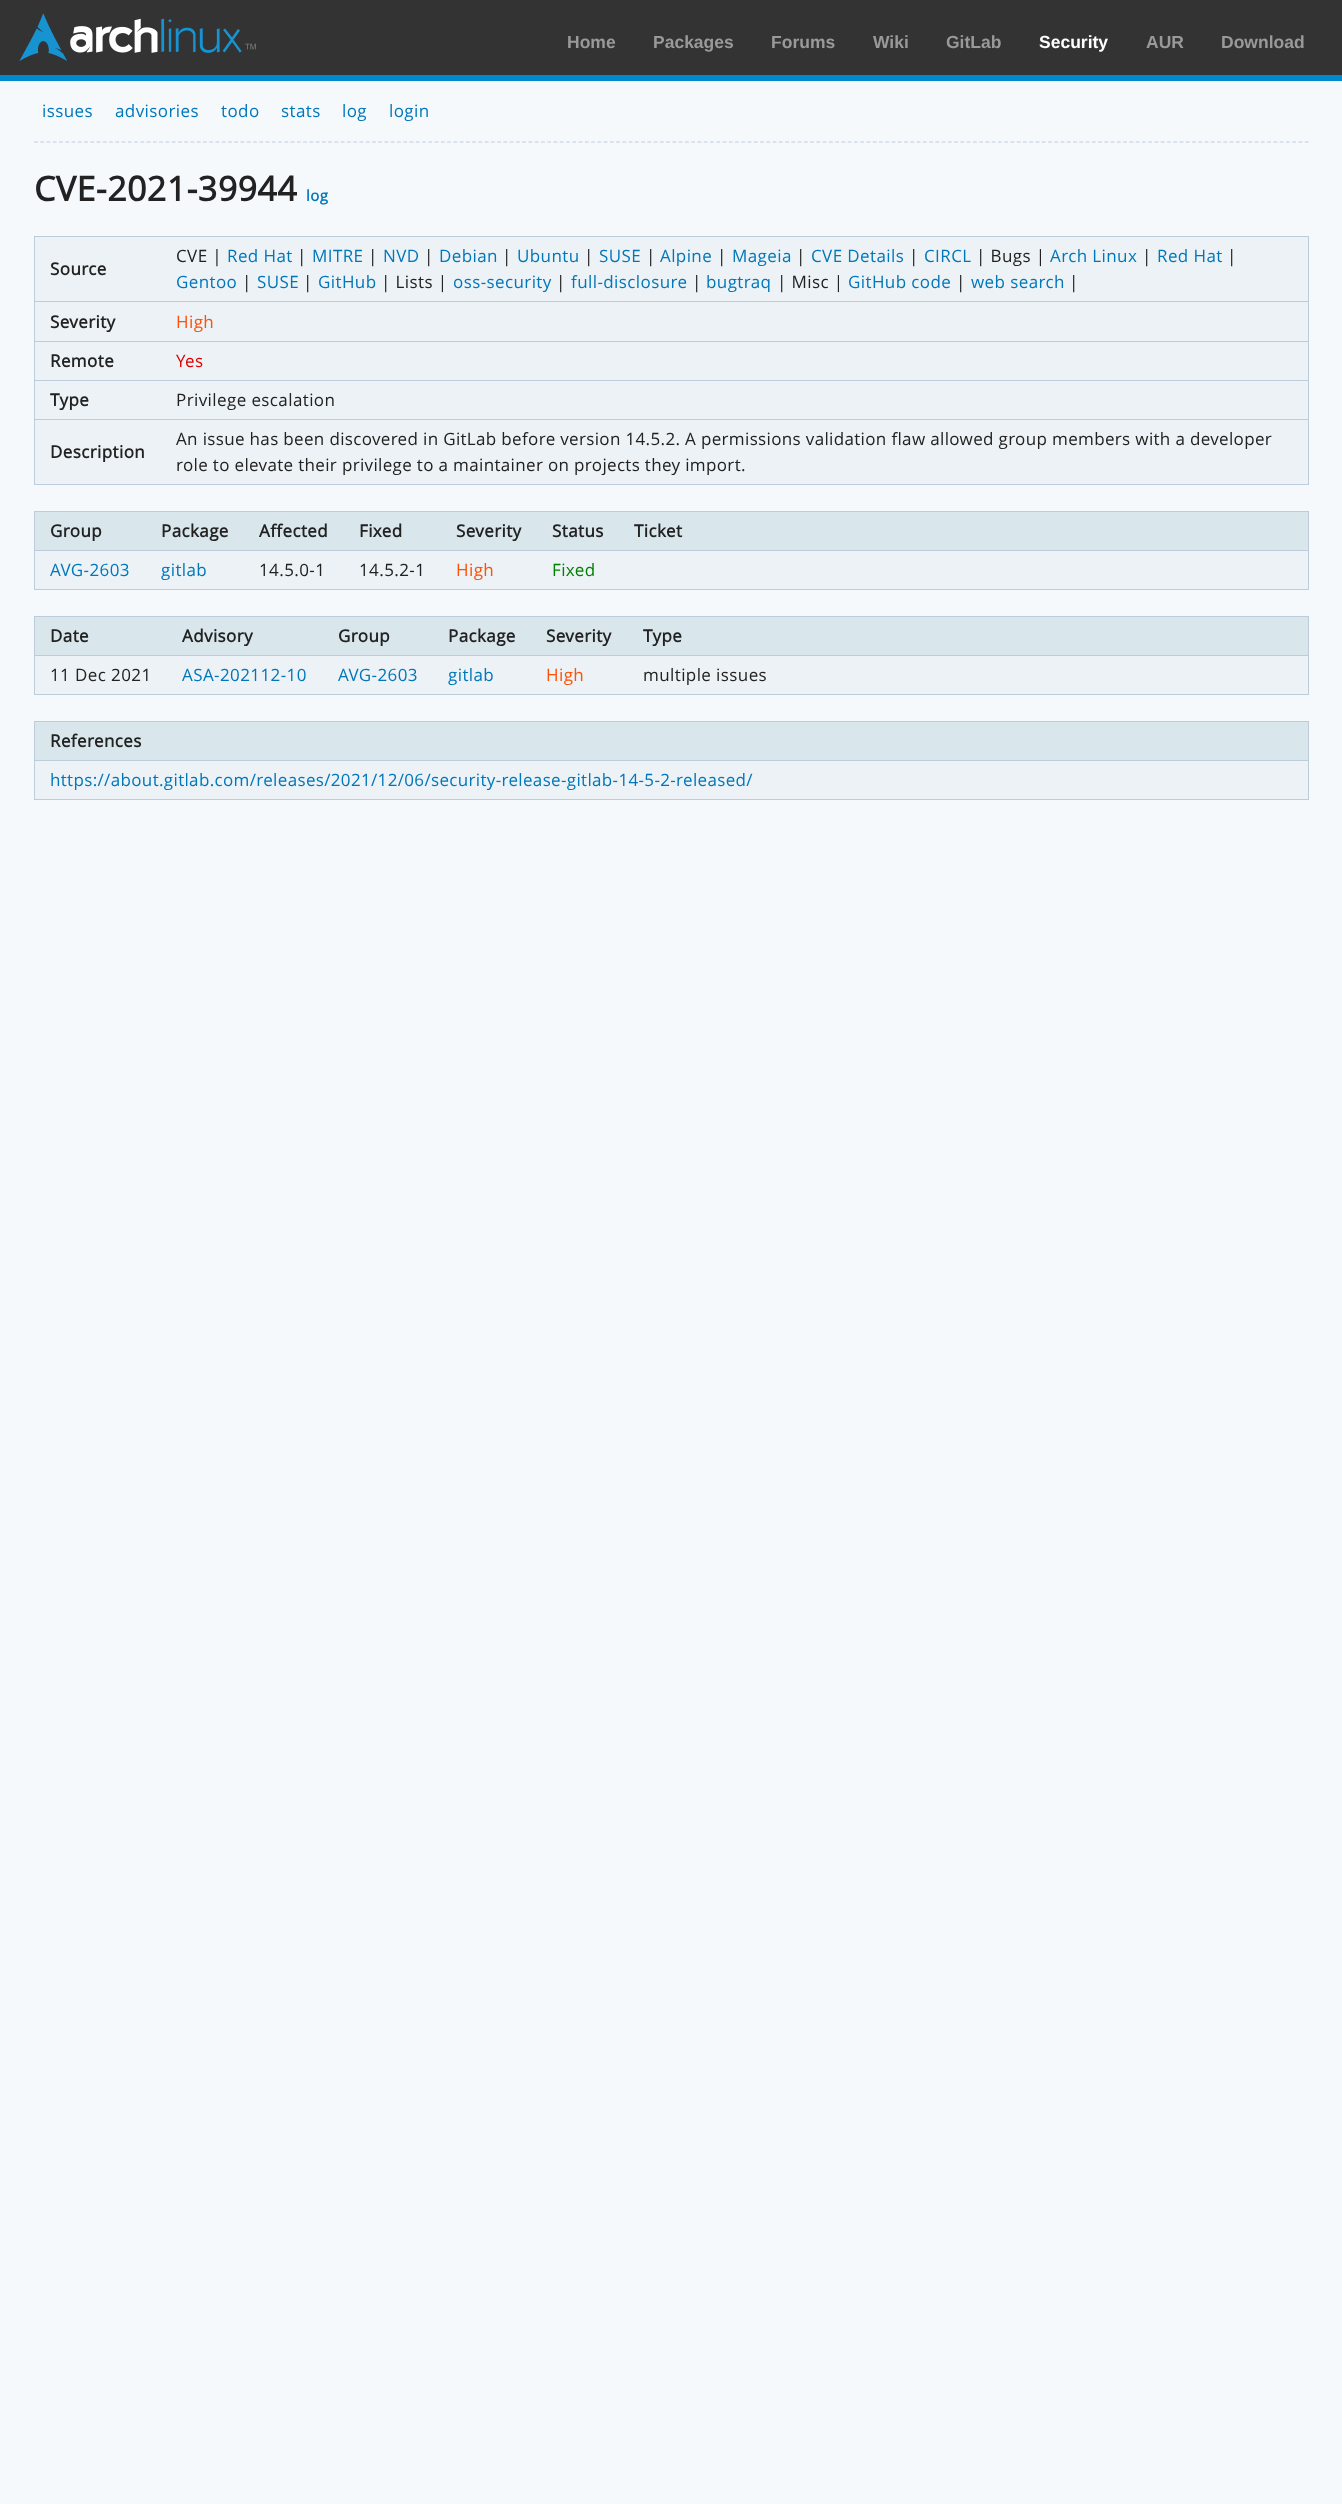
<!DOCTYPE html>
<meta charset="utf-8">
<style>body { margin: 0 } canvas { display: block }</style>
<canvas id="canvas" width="1342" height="2504"></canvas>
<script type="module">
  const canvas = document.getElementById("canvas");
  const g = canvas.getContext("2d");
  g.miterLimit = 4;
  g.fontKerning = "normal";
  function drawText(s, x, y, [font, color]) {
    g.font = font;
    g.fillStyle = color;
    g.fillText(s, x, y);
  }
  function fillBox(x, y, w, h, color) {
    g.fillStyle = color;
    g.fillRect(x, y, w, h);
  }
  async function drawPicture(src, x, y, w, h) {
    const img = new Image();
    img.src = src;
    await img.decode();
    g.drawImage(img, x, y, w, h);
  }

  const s1 = ["bold 17.5px Liberation Sans", "#999999"];
  const s2 = ["bold 17.5px Liberation Sans", "#FFFFFF"];
  const s3 = ["17px Open Sans", "#0077BB"];
  const s4 = ["bold 34px Open Sans", "#222222"];
  const s5 = ["bold 15px Open Sans", "#0077BB"];
  const s6 = ["bold 17px Open Sans", "#222222"];
  const s7 = ["17px Open Sans", "#222222"];
  const s8 = ["17px Open Sans", "#FF5005"];
  const s9 = ["17px Open Sans", "#DD0000"];
  const s10 = ["17px Open Sans", "#008000"];

  fillBox(0, 0, 1342, 2504, "#F6F9FC");
  fillBox(0, 0, 1342, 75, "#333333");
  fillBox(0, 75, 1342, 6, "#0088CC");
  await drawPicture("pic1.png", 19, 13, 237, 48);
  drawText("Home", 567, 48, s1);
  drawText("Packages", 653, 48, s1);
  drawText("Forums", 771, 48, s1);
  drawText("Wiki", 873, 48, s1);
  drawText("GitLab", 946, 48, s1);
  drawText("Security", 1039, 48, s2);
  drawText("AUR", 1146, 48, s1);
  drawText("Download", 1221, 48, s1);
  g.letterSpacing = "0.4px";
  drawText("issues", 42, 117, s3);
  drawText("advisories", 115, 117, s3);
  drawText("todo", 221, 117, s3);
  drawText("stats", 281, 117, s3);
  drawText("log", 342, 117, s3);
  drawText("login", 389, 117, s3);
  g.beginPath();
  g.moveTo(34, 142);
  g.lineTo(1309, 142);
  g.strokeStyle = "#BBCCDD";
  g.lineWidth = 1.2;
  g.setLineDash([3.75, 2.51]);
  g.stroke();
  drawText("CVE-2021-39944", 34, 201, s4);
  drawText("log", 306, 201, s5);
  fillBox(35, 237, 1273, 247, "#ECF2F5");
  fillBox(34, 236, 1275, 1, "#BBCCDD");
  fillBox(1308, 236, 1, 249, "#BBCCDD");
  fillBox(34, 484, 1275, 1, "#BBCCDD");
  fillBox(34, 236, 1, 249, "#BBCCDD");
  drawText("Source", 50, 275, s6);
  drawText("CVE |", 176, 262, s7);
  drawText("Red Hat", 227, 262, s3);
  drawText("|", 297, 262, s7);
  drawText("MITRE", 312, 262, s3);
  drawText("|", 368, 262, s7);
  drawText("NVD", 383, 262, s3);
  drawText("|", 424, 262, s7);
  drawText("Debian", 439, 262, s3);
  drawText("|", 502, 262, s7);
  drawText("Ubuntu", 517, 262, s3);
  drawText("|", 584, 262, s7);
  drawText("SUSE", 599, 262, s3);
  drawText("|", 646, 262, s7);
  drawText("Alpine", 660, 262, s3);
  drawText("|", 717, 262, s7);
  drawText("Mageia", 732, 262, s3);
  drawText("|", 796, 262, s7);
  drawText("CVE Details", 811, 262, s3);
  drawText("|", 909, 262, s7);
  drawText("CIRCL", 924, 262, s3);
  drawText("| Bugs |", 976, 262, s7);
  drawText("Arch Linux", 1050, 262, s3);
  drawText("|", 1142, 262, s7);
  drawText("Red Hat", 1157, 262, s3);
  drawText("|", 1227, 262, s7);
  drawText("Gentoo", 176, 288, s3);
  drawText("|", 242, 288, s7);
  drawText("SUSE", 257, 288, s3);
  drawText("|", 303, 288, s7);
  drawText("GitHub", 318, 288, s3);
  drawText("| Lists |", 381, 288, s7);
  drawText("oss-security", 453, 288, s3);
  drawText("|", 556, 288, s7);
  drawText("full-disclosure", 571, 288, s3);
  drawText("|", 692, 288, s7);
  drawText("bugtraq", 706, 288, s3);
  drawText("| Misc |", 777, 288, s7);
  drawText("GitHub code", 848, 288, s3);
  drawText("|", 956, 288, s7);
  drawText("web search", 971, 288, s3);
  drawText("|", 1069, 288, s7);
  drawText("Severity", 50, 328, s6);
  fillBox(34, 301, 1275, 1, "#BBCCDD");
  drawText("High", 176, 328, s8);
  drawText("Remote", 50, 367, s6);
  fillBox(34, 341, 1275, 1, "#BBCCDD");
  drawText("Yes", 176, 367, s9);
  drawText("Type", 50, 406, s6);
  fillBox(34, 380, 1275, 1, "#BBCCDD");
  drawText("Privilege escalation", 176, 406, s7);
  drawText("Description", 50, 458, s6);
  fillBox(34, 419, 1275, 1, "#BBCCDD");
  g.letterSpacing = "0.34px";
  drawText("An issue has been discovered in GitLab before version 14.5.2. A permissions validation flaw allowed group members with a developer", 176, 445, s7);
  drawText("role to elevate their privilege to a maintainer on projects they import.", 176, 471, s7);
  fillBox(35, 551, 1273, 38, "#ECF2F5");
  fillBox(34, 511, 1275, 1, "#BBCCDD");
  fillBox(1308, 511, 1, 79, "#BBCCDD");
  fillBox(34, 589, 1275, 1, "#BBCCDD");
  fillBox(34, 511, 1, 79, "#BBCCDD");
  fillBox(35, 512, 1273, 38, "#D9E6EC");
  g.letterSpacing = "0.4px";
  drawText("Group", 50, 537, s6);
  drawText("Package", 161, 537, s6);
  drawText("Affected", 259, 537, s6);
  drawText("Fixed", 359, 537, s6);
  drawText("Severity", 456, 537, s6);
  drawText("Status", 552, 537, s6);
  drawText("Ticket", 634, 537, s6);
  fillBox(34, 550, 1275, 1, "#BBCCDD");
  drawText("AVG-2603", 50, 576, s3);
  drawText("gitlab", 161, 576, s3);
  drawText("14.5.0-1", 259, 576, s7);
  drawText("14.5.2-1", 359, 576, s7);
  drawText("High", 456, 576, s8);
  drawText("Fixed", 552, 576, s10);
  fillBox(35, 656, 1273, 38, "#ECF2F5");
  fillBox(34, 616, 1275, 1, "#BBCCDD");
  fillBox(1308, 616, 1, 79, "#BBCCDD");
  fillBox(34, 694, 1275, 1, "#BBCCDD");
  fillBox(34, 616, 1, 79, "#BBCCDD");
  fillBox(35, 617, 1273, 38, "#D9E6EC");
  drawText("Date", 50, 642, s6);
  drawText("Advisory", 182, 642, s6);
  drawText("Group", 338, 642, s6);
  drawText("Package", 448, 642, s6);
  drawText("Severity", 546, 642, s6);
  drawText("Type", 643, 642, s6);
  drawText("11 Dec 2021", 50, 681, s7);
  drawText("ASA-202112-10", 182, 681, s3);
  drawText("AVG-2603", 338, 681, s3);
  drawText("gitlab", 448, 681, s3);
  drawText("High", 546, 681, s8);
  fillBox(34, 655, 1275, 1, "#BBCCDD");
  drawText("multiple issues", 643, 681, s7);
  fillBox(35, 761, 1273, 38, "#ECF2F5");
  fillBox(34, 721, 1275, 1, "#BBCCDD");
  fillBox(1308, 721, 1, 79, "#BBCCDD");
  fillBox(34, 799, 1275, 1, "#BBCCDD");
  fillBox(34, 721, 1, 79, "#BBCCDD");
  fillBox(35, 722, 1273, 38, "#D9E6EC");
  drawText("References", 50, 747, s6);
  fillBox(34, 760, 1275, 1, "#BBCCDD");
  g.letterSpacing = "0.34px";
  drawText("https://about.gitlab.com/releases/2021/12/06/security-release-gitlab-14-5-2-released/", 50, 786, s3);
</script>
